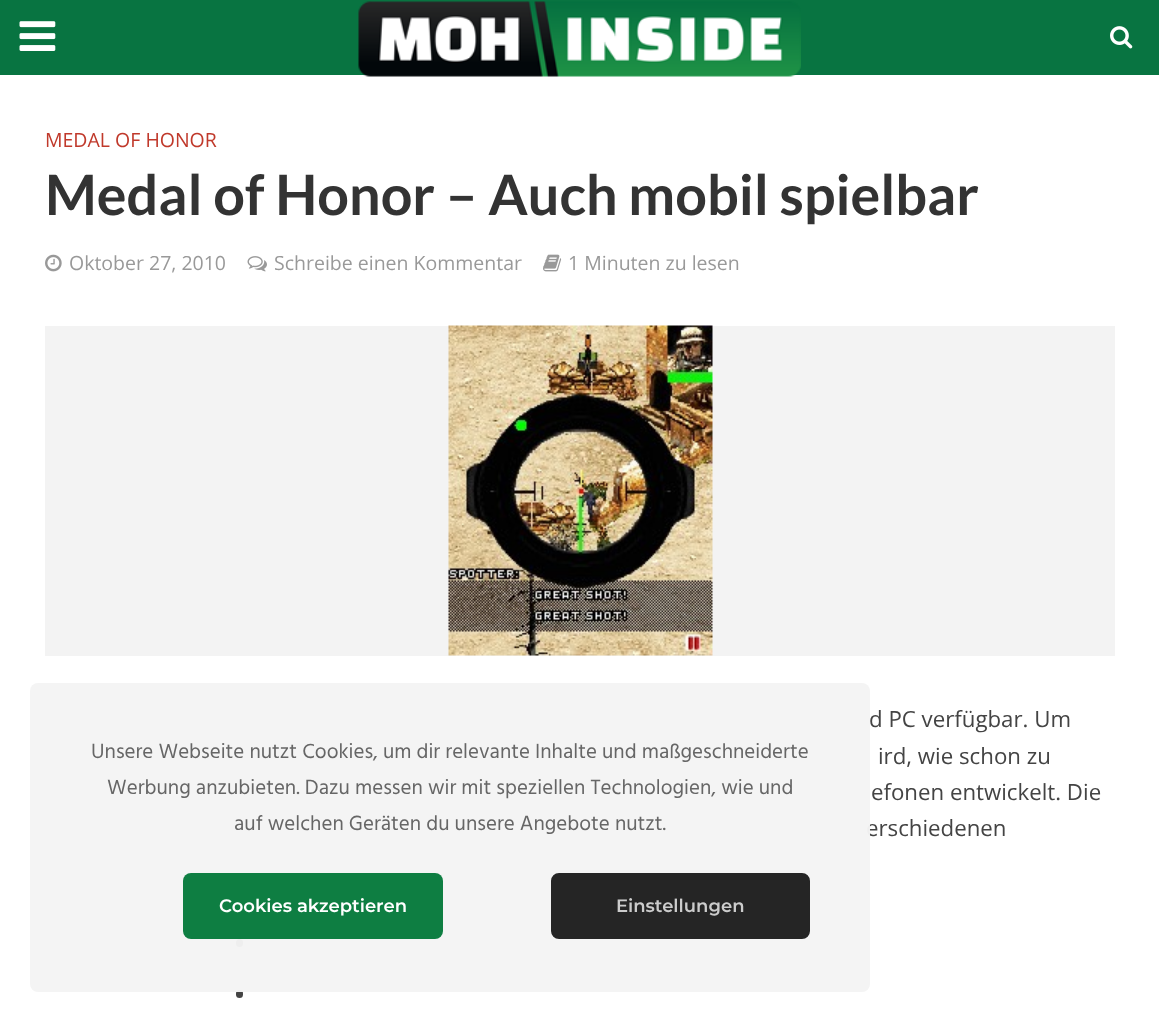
<!DOCTYPE html>
<meta charset="utf-8">
<style>body { margin: 0 } canvas { display: block }</style>
<canvas id="canvas" width="1159" height="1021"></canvas>
<script type="module">
  const canvas = document.getElementById("canvas");
  const g = canvas.getContext("2d");
  g.miterLimit = 4;
  g.fontKerning = "normal";
  function drawText(s, x, y, [font, color]) {
    g.font = font;
    g.fillStyle = color;
    g.fillText(s, x, y);
  }
  function fillBox(x, y, w, h, color) {
    g.fillStyle = color;
    g.fillRect(x, y, w, h);
  }
  function fillRounded(x, y, w, h, r, color) {
    g.fillStyle = color;
    g.beginPath();
    g.roundRect(x, y, w, h, r);
    g.fill();
  }
  async function drawPicture(src, x, y, w, h) {
    const img = new Image();
    img.src = src;
    await img.decode();
    g.drawImage(img, x, y, w, h);
  }

  const s1 = ["19.5px Open Sans", "#C0392B"];
  const s2 = ["bold 55.7px Lato", "#333333"];
  const s3 = ["19.5px Open Sans", "#999999"];
  const s4 = ["22.25px Open Sans", "#444444"];
  const s5 = ["21px Hind", "#666666"];
  const s6 = ["600 18px Montserrat", "#FFFFFF"];
  const s7 = ["600 18px Montserrat", "#CCCCCC"];

  fillBox(0, 0, 1159, 1021, "#FFFFFF");
  fillBox(0, 0, 1159, 75, "#087441");
  await drawPicture("pic1.png", 19, 21, 37, 30);
  await drawPicture("pic2.png", 358, 1, 443, 76);
  await drawPicture("pic3.png", 1110, 26, 23, 23);
  drawText("MEDAL OF HONOR", 45, 147, s1);
  drawText("Medal of Honor – Auch mobil spielbar", 45, 215, s2);
  await drawPicture("pic4.png", 45, 254, 17, 18);
  drawText("Oktober 27, 2010", 69, 270, s3);
  await drawPicture("pic5.png", 247, 256, 20, 16);
  drawText("Schreibe einen Kommentar", 274, 270, s3);
  await drawPicture("pic6.png", 543, 254, 19, 18);
  drawText("1 Minuten zu lesen", 568, 270, s3);
  fillBox(45, 326, 1070, 330, "#F3F3F3");
  await drawPicture("pic7.png", 448, 325, 265, 331);
  drawText("d PC verfügbar. Um", 869, 727, s4);
  drawText("ird, wie schon zu", 878, 764, s4);
  drawText("efonen entwickelt. Die", 871, 800, s4);
  drawText("erschiedenen", 866, 836, s4);
  fillRounded(236, 939, 7, 8, 3.5, "#444444");
  fillRounded(236, 990, 7, 8, 3.5, "#444444");
  fillRounded(30, 683, 840, 309, 8, "rgba(244, 244, 244, 0.97)");
  drawText("Unsere Webseite nutzt Cookies, um dir relevante Inhalte und maßgeschneiderte", 91, 758, s5);
  drawText("Werbung anzubieten. Dazu messen wir mit speziellen Technologien, wie und", 107, 794, s5);
  drawText("auf welchen Geräten du unsere Angebote nutzt.", 234, 830, s5);
  fillRounded(183, 873, 260, 66, 8, "#0E7E42");
  drawText("Cookies akzeptieren", 219, 912, s6);
  g.fillStyle = "#252525";
  g.beginPath();
  g.roundRect(552, 874, 257, 64, 7);
  g.fill();
  g.strokeStyle = "#252525";
  g.lineWidth = 2;
  g.stroke();
  drawText("Einstellungen", 616, 912, s7);
</script>
